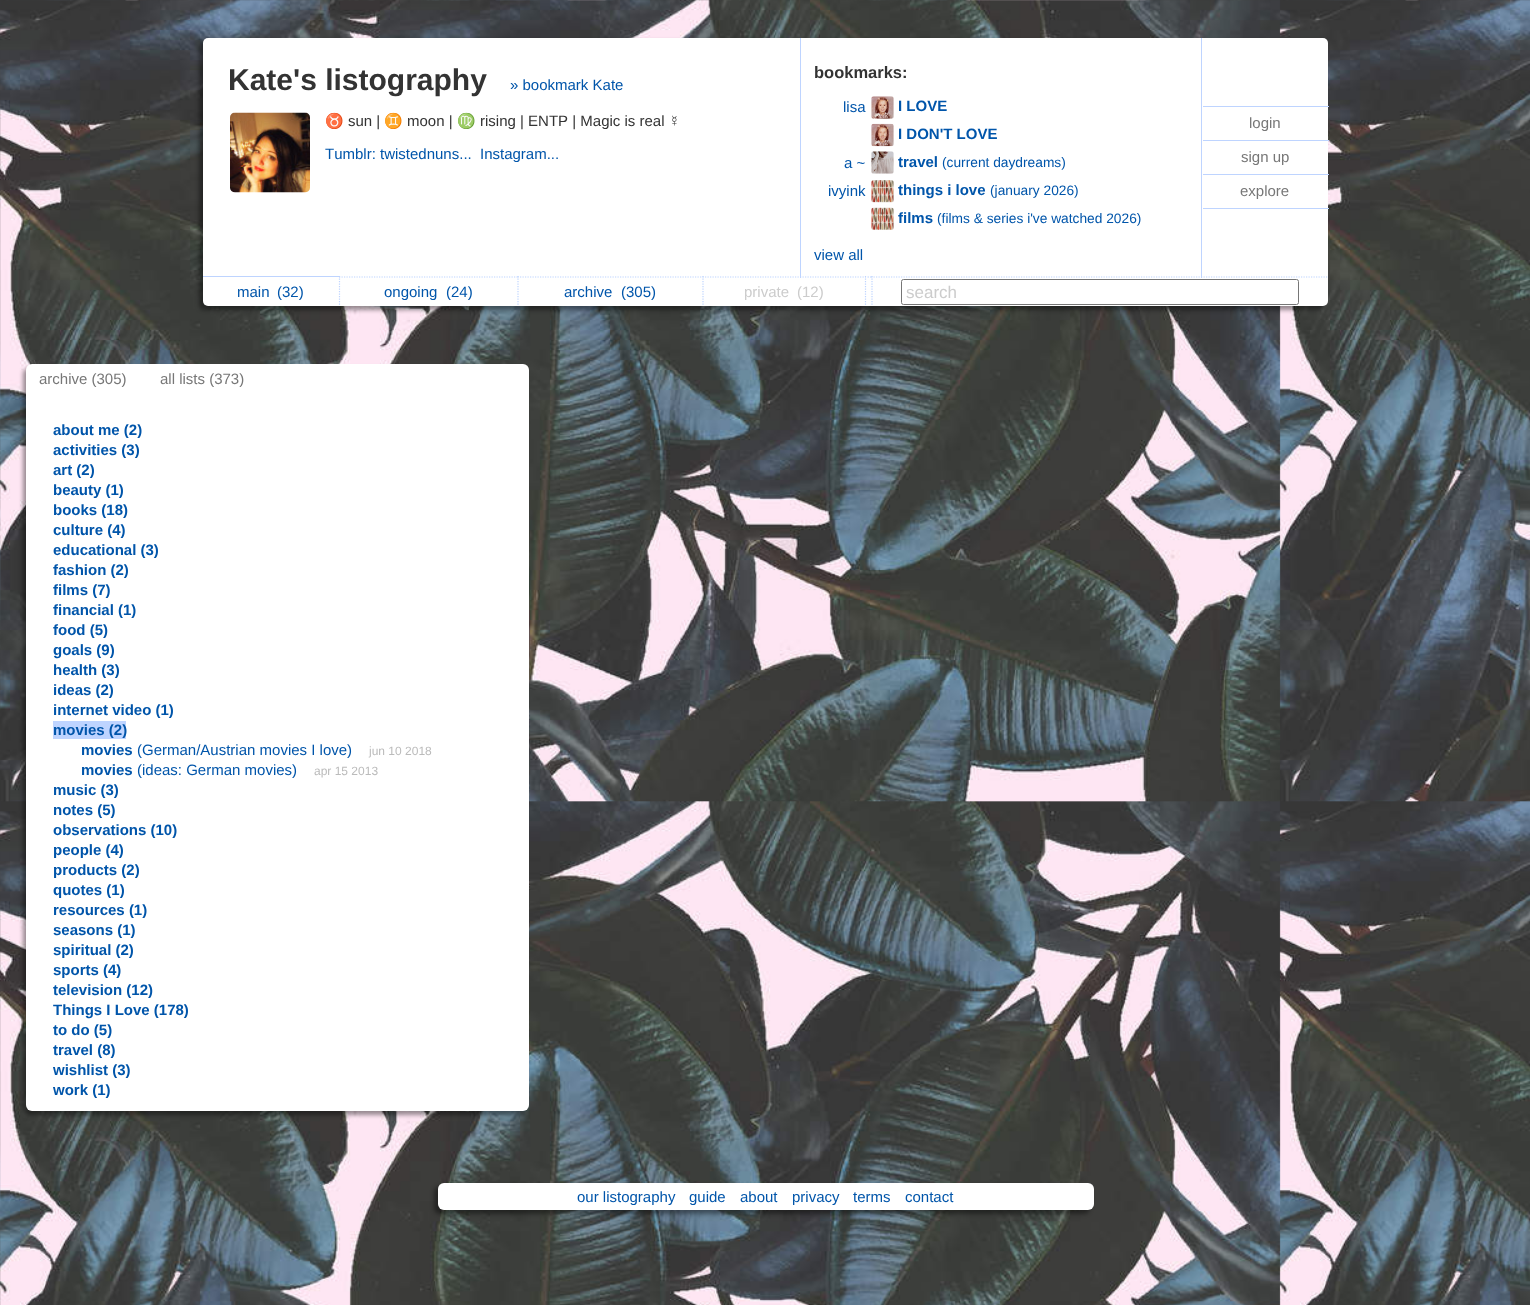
<!DOCTYPE html>
<meta charset="utf-8">
<style>body { margin: 0 } canvas { display: block }</style>
<canvas id="canvas" width="1530" height="1305"></canvas>
<script type="module">
  const canvas = document.getElementById("canvas");
  const g = canvas.getContext("2d");
  g.miterLimit = 4;
  g.fontKerning = "none";
  function drawText(s, x, y, [font, color]) {
    g.font = font;
    g.fillStyle = color;
    g.fillText(s, x, y);
  }
  function fillBox(x, y, w, h, color) {
    g.fillStyle = color;
    g.fillRect(x, y, w, h);
  }
  function fillRounded(x, y, w, h, r, color) {
    g.fillStyle = color;
    g.beginPath();
    g.roundRect(x, y, w, h, r);
    g.fill();
  }
  async function drawPicture(src, x, y, w, h) {
    const img = new Image();
    img.src = src;
    await img.decode();
    g.drawImage(img, x, y, w, h);
  }

  const s1 = ["bold 30px Liberation Sans", "#333333"];
  const s2 = ["15px Liberation Sans", "#0055AA"];
  const s3 = ["15px Noto Color Emoji", "#333333"];
  const s4 = ["15px Liberation Sans", "#333333"];
  const s5 = ["bold 16.5px Liberation Sans", "#333333"];
  const s6 = ["bold 15px Liberation Sans", "#0055AA"];
  const s7 = ["13.75px Liberation Sans", "#0055AA"];
  const s8 = ["15px Liberation Sans", "#777777"];
  const s9 = ["15px Liberation Sans", "#CCCCCC"];
  const s10 = ["17px Liberation Sans", "#CCCCCC"];
  const s11 = ["12px Liberation Sans", "#BBBBBB"];

  fillBox(0, 0, 1530, 1305, "#FFFFFF");
  await drawPicture("pic1.png", 0, 0, 1530, 1305);
  g.fillStyle = "rgba(0, 0, 0, 0.4)";
  g.filter = "blur(2px)";
  g.beginPath();
  g.roundRect(199, 41, 1125, 269, 5);
  g.fill();
  g.filter = "none";
  fillRounded(203, 38, 1125, 268, 5, "#FFFFFF");
  fillBox(800, 38, 1, 240, "#BED4FF");
  drawText("Kate's listography", 228, 90, s1);
  drawText("» bookmark Kate", 510, 90, s2);
  await drawPicture("pic2.png", 230, 112, 80, 81);
  drawText("♉", 325, 126, s3);
  drawText("sun |", 348, 126, s4);
  drawText("♊", 384, 126, s3);
  drawText("moon |", 407, 126, s4);
  drawText("♍", 457, 126, s3);
  drawText("rising | ENTP | Magic is real ☿", 480, 126, s4);
  drawText("Tumblr: twistednuns...", 325, 159, s2);
  drawText("Instagram...", 480, 159, s2);
  drawText("bookmarks:", 814, 78, s5);
  drawText("lisa", 843, 112, s2);
  await drawPicture("pic3.png", 871, 96, 23, 23);
  drawText("I LOVE", 898, 111, s6);
  await drawPicture("pic4.png", 871, 123, 23, 24);
  drawText("I DON'T LOVE", 898, 139, s6);
  drawText("a ~", 844, 168, s2);
  await drawPicture("pic5.png", 871, 151, 23, 23);
  drawText("travel", 898, 167, s6);
  drawText("(current daydreams)", 942, 167, s7);
  drawText("ivyink", 828, 196, s2);
  await drawPicture("pic6.png", 871, 180, 23, 23);
  drawText("things i love", 898, 195, s6);
  drawText("(january 2026)", 990, 195, s7);
  await drawPicture("pic7.png", 871, 207, 23, 23);
  drawText("films", 898, 223, s6);
  drawText("(films & series i've watched 2026)", 937, 223, s7);
  drawText("view all", 814, 260, s2);
  fillBox(1201, 38, 1, 240, "#BED4FF");
  fillBox(1203, 106, 126, 1, "#BED4FF");
  drawText("login", 1249, 128, s8);
  fillBox(1203, 140, 126, 1, "#BED4FF");
  drawText("sign up", 1241, 162, s8);
  fillBox(1203, 174, 126, 1, "#BED4FF");
  fillBox(1203, 208, 126, 1, "#BED4FF");
  drawText("explore", 1240, 196, s8);
  fillBox(203, 276, 136, 1, "#BED4FF");
  drawText("main", 237, 297, s2);
  drawText("(32)", 277, 297, s2);
  g.beginPath();
  g.moveTo(339, 277);
  g.lineTo(517.5, 277);
  g.strokeStyle = "#BED4FF";
  g.lineWidth = 1.2;
  g.setLineDash([1.25, 1.25]);
  g.stroke();
  g.beginPath();
  g.moveTo(339.5, 276);
  g.lineTo(339.5, 306);
  g.stroke();
  drawText("ongoing", 384, 297, s2);
  drawText("(24)", 446, 297, s2);
  g.beginPath();
  g.moveTo(517.5, 277);
  g.lineTo(702.5, 277);
  g.stroke();
  g.beginPath();
  g.moveTo(518, 276);
  g.lineTo(518, 306);
  g.stroke();
  drawText("archive", 564, 297, s2);
  drawText("(305)", 621, 297, s2);
  g.beginPath();
  g.moveTo(702.5, 277);
  g.lineTo(865, 277);
  g.stroke();
  g.beginPath();
  g.moveTo(703, 276);
  g.lineTo(703, 306);
  g.stroke();
  drawText("private", 744, 297, s9);
  drawText("(12)", 797, 297, s9);
  g.beginPath();
  g.moveTo(865, 277);
  g.lineTo(866, 277);
  g.moveTo(867.5, 277);
  g.lineTo(869, 277);
  g.moveTo(870, 277);
  g.lineTo(871, 277);
  g.setLineDash([]);
  g.stroke();
  g.beginPath();
  g.moveTo(865.5, 276);
  g.lineTo(865.5, 306);
  g.setLineDash([1.25, 1.25]);
  g.stroke();
  g.beginPath();
  g.moveTo(871, 277);
  g.lineTo(1327.5, 277);
  g.stroke();
  g.beginPath();
  g.moveTo(872, 276);
  g.lineTo(872, 306);
  g.stroke();
  g.beginPath();
  g.roundRect(901.5, 279.5, 397, 25, 2);
  g.strokeStyle = "#767676";
  g.lineWidth = 1;
  g.setLineDash([]);
  g.stroke();
  drawText("search", 906, 298, s10);
  g.fillStyle = "rgba(0, 0, 0, 0.4)";
  g.filter = "blur(2px)";
  g.beginPath();
  g.roundRect(23, 368, 502, 747, 6);
  g.fill();
  g.filter = "none";
  fillRounded(26, 364, 503, 747, 6, "#FFFFFF");
  drawText("archive (305)", 39, 384, s8);
  drawText("all lists (373)", 160, 384, s8);
  drawText("about me (2)", 53, 435, s6);
  drawText("activities (3)", 53, 455, s6);
  drawText("art (2)", 53, 475, s6);
  drawText("beauty (1)", 53, 495, s6);
  drawText("books (18)", 53, 515, s6);
  drawText("culture (4)", 53, 535, s6);
  drawText("educational (3)", 53, 555, s6);
  drawText("fashion (2)", 53, 575, s6);
  drawText("films (7)", 53, 595, s6);
  drawText("financial (1)", 53, 615, s6);
  drawText("food (5)", 53, 635, s6);
  drawText("goals (9)", 53, 655, s6);
  drawText("health (3)", 53, 675, s6);
  drawText("ideas (2)", 53, 695, s6);
  drawText("internet video (1)", 53, 715, s6);
  fillBox(53, 721, 73, 18, "#BED4FF");
  drawText("movies (2)", 53, 735, s6);
  drawText("movies", 81, 755, s6);
  drawText("(German/Austrian movies I love)", 137, 755, s2);
  drawText("jun 10 2018", 369, 755, s11);
  drawText("movies", 81, 775, s6);
  drawText("(ideas: German movies)", 137, 775, s2);
  drawText("apr 15 2013", 314, 775, s11);
  drawText("music (3)", 53, 795, s6);
  drawText("notes (5)", 53, 815, s6);
  drawText("observations (10)", 53, 835, s6);
  drawText("people (4)", 53, 855, s6);
  drawText("products (2)", 53, 875, s6);
  drawText("quotes (1)", 53, 895, s6);
  drawText("resources (1)", 53, 915, s6);
  drawText("seasons (1)", 53, 935, s6);
  drawText("spiritual (2)", 53, 955, s6);
  drawText("sports (4)", 53, 975, s6);
  drawText("television (12)", 53, 995, s6);
  drawText("Things I Love (178)", 53, 1015, s6);
  drawText("to do (5)", 53, 1035, s6);
  drawText("travel (8)", 53, 1055, s6);
  drawText("wishlist (3)", 53, 1075, s6);
  drawText("work (1)", 53, 1095, s6);
  g.fillStyle = "rgba(0, 0, 0, 0.4)";
  g.filter = "blur(2px)";
  g.beginPath();
  g.roundRect(434, 1186, 656, 28, 6);
  g.fill();
  g.filter = "none";
  fillRounded(438, 1183, 656, 27, 6, "#FFFFFF");
  drawText("our listography", 577, 1202, s2);
  drawText("guide", 689, 1202, s2);
  drawText("about", 740, 1202, s2);
  drawText("privacy", 792, 1202, s2);
  drawText("terms", 853, 1202, s2);
  drawText("contact", 905, 1202, s2);
</script>
